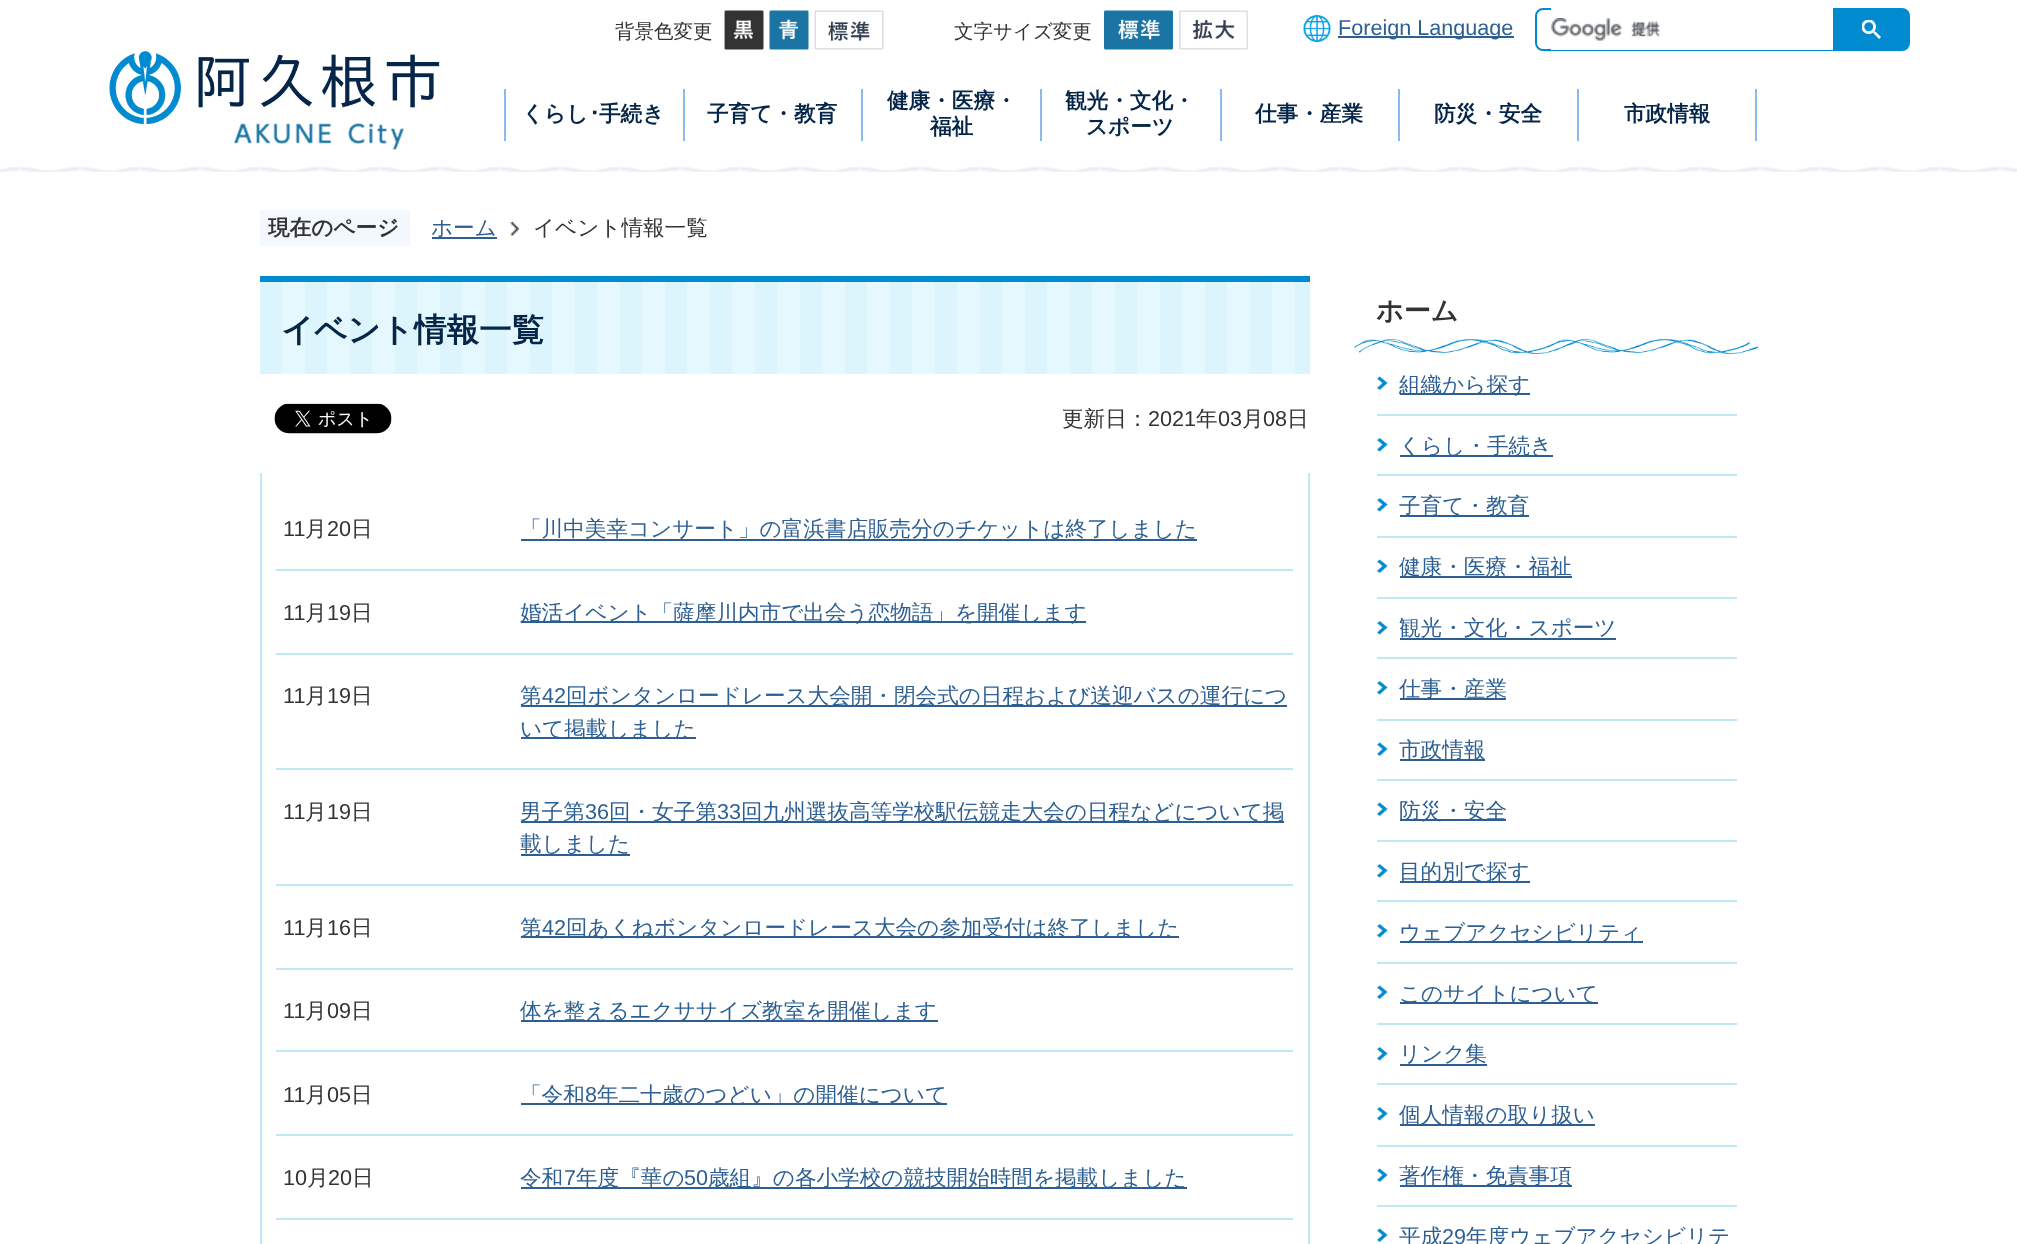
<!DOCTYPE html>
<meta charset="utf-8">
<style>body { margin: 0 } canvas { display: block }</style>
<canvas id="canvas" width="2017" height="1244"></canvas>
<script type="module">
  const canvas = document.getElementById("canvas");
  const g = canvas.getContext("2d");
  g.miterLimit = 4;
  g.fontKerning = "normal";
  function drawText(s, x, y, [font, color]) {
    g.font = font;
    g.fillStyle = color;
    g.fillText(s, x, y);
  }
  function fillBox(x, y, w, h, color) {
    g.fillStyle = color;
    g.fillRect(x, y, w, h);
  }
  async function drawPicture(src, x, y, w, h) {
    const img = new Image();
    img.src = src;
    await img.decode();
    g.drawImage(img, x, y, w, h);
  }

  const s1 = ["500 19.5px WenQuanYi Zen Hei", "#333333"];
  const s2 = ["21.6px Liberation Sans", "#2D5F92"];
  const s3 = ["bold 21.6px WenQuanYi Zen Hei", "#052648"];
  const s4 = ["bold 21.6px IPAPGothic", "#052648"];
  const s5 = ["bold 21.6px WenQuanYi Zen Hei", "#333333"];
  const s6 = ["500 21.6px WenQuanYi Zen Hei", "#2D5F92"];
  const s7 = ["500 21.6px WenQuanYi Zen Hei", "#333333"];
  const s8 = ["bold 32.5px WenQuanYi Zen Hei", "#052648"];
  const s9 = ["21.6px Liberation Sans", "#333333"];
  const s10 = ["bold 27px WenQuanYi Zen Hei", "#333333"];

  fillBox(0, 0, 2017, 1244, "#FFFFFF");
  await drawPicture("pic1.png", 0, 166, 2017, 6);
  drawText("背景色変更", 615, 38, s1);
  await drawPicture("pic2.png", 724, 10, 40, 40);
  await drawPicture("pic3.png", 769, 10, 40, 40);
  await drawPicture("pic4.png", 814, 10, 70, 40);
  drawText("文字サイズ変更", 954, 38, s1);
  await drawPicture("pic5.png", 1104, 10, 69, 40);
  await drawPicture("pic6.png", 1179, 10, 69, 40);
  await drawPicture("pic7.png", 1303, 15, 28, 27);
  fillBox(1338, 36, 176, 2, "#2D5F92");
  drawText("Foreign Language", 1338, 35, s2);
  g.beginPath();
  g.roundRect(1536, 9, 298, 41, [7, 0, 0, 7]);
  g.strokeStyle = "#008ACF";
  g.lineWidth = 2;
  g.stroke();
  fillBox(1551, 8, 282, 42, "#FFFFFF");
  await drawPicture("pic8.png", 1551, 18, 109, 23);
  g.fillStyle = "#008ACF";
  g.beginPath();
  g.roundRect(1835, 8, 75, 43, [0, 8, 8, 0]);
  g.fill();
  await drawPicture("pic9.png", 1862, 20, 19, 19);
  await drawPicture("pic10.png", 109, 51, 331, 99);
  fillBox(683, 89, 2, 52, "#8ABAEE");
  fillBox(504, 89, 2, 52, "#8ABAEE");
  drawText("くらし", 522, 121, s3);
  drawText("･", 589, 121, s4);
  drawText("手続き", 599, 121, s3);
  fillBox(861, 89, 2, 52, "#8ABAEE");
  drawText("子育て・教育", 707, 121, s3);
  fillBox(1040, 89, 2, 52, "#8ABAEE");
  drawText("健康・医療・", 887, 108, s3);
  drawText("福祉", 930, 134, s3);
  fillBox(1220, 89, 2, 52, "#8ABAEE");
  drawText("観光・文化・", 1065, 108, s3);
  drawText("スポーツ", 1086, 134, s3);
  fillBox(1398, 89, 2, 52, "#8ABAEE");
  drawText("仕事・産業", 1255, 121, s3);
  fillBox(1577, 89, 2, 52, "#8ABAEE");
  drawText("防災・安全", 1434, 121, s3);
  fillBox(1755, 89, 2, 52, "#8ABAEE");
  drawText("市政情報", 1624, 121, s3);
  fillBox(260, 210, 150, 36, "#F3F8FF");
  drawText("現在のページ", 268, 235, s5);
  fillBox(432, 237, 65, 2, "#2D5F92");
  drawText("ホーム", 431, 235, s6);
  await drawPicture("pic11.png", 510, 222, 9, 14);
  drawText("イベント情報一覧", 533, 235, s7);
  await drawPicture("pic12.png", 260, 282, 1050, 92);
  fillBox(260, 276, 1050, 6, "#008ACF");
  drawText("イベント情報一覧", 281, 341, s8);
  await drawPicture("pic13.png", 274, 403, 118, 31);
  drawText("更新日：", 1062, 426, s7);
  drawText("2021", 1148, 426, s9);
  drawText("年", 1196, 426, s7);
  drawText("03", 1218, 426, s9);
  drawText("月", 1242, 426, s7);
  drawText("08", 1263, 426, s9);
  drawText("日", 1287, 426, s7);
  fillBox(1308, 473, 2, 771, "#BDE8F4");
  fillBox(260, 473, 2, 771, "#BDE8F4");
  fillBox(276, 569, 1017, 2, "#BDE8F4");
  drawText("11", 283, 536, s9);
  drawText("月", 305, 536, s7);
  drawText("20", 327, 536, s9);
  drawText("日", 351, 536, s7);
  fillBox(521, 539, 676, 2, "#2D5F92");
  drawText("「川中美幸コンサート」の富浜書店販売分のチケットは終了しました", 520, 536, s6);
  fillBox(276, 653, 1017, 2, "#BDE8F4");
  drawText("11", 283, 620, s9);
  drawText("月", 305, 620, s7);
  drawText("19", 327, 620, s9);
  drawText("日", 351, 620, s7);
  fillBox(521, 621, 565, 2, "#2D5F92");
  drawText("婚活イベント「薩摩川内市で出会う恋物語」を開催します", 520, 620, s6);
  fillBox(276, 768, 1017, 2, "#BDE8F4");
  drawText("11", 283, 703, s9);
  drawText("月", 305, 703, s7);
  drawText("19", 327, 703, s9);
  drawText("日", 351, 703, s7);
  fillBox(521, 705, 766, 2, "#2D5F92");
  drawText("第", 520, 703, s6);
  drawText("42", 542, 703, s2);
  drawText("回ボンタンロードレース大会開・閉会式の日程および送迎バスの運行につ", 566, 703, s6);
  fillBox(521, 737, 175, 2, "#2D5F92");
  drawText("いて掲載しました", 520, 736, s6);
  fillBox(276, 884, 1017, 2, "#BDE8F4");
  drawText("11", 283, 819, s9);
  drawText("月", 305, 819, s7);
  drawText("19", 327, 819, s9);
  drawText("日", 351, 819, s7);
  fillBox(521, 821, 763, 2, "#2D5F92");
  drawText("男子第", 520, 819, s6);
  drawText("36", 585, 819, s2);
  drawText("回・女子第", 609, 819, s6);
  drawText("33", 717, 819, s2);
  drawText("回九州選抜高等学校駅伝競走大会の日程などについて掲", 741, 819, s6);
  fillBox(521, 854, 109, 2, "#2D5F92");
  drawText("載しました", 520, 851, s6);
  fillBox(276, 968, 1017, 2, "#BDE8F4");
  drawText("11", 283, 935, s9);
  drawText("月", 305, 935, s7);
  drawText("16", 327, 935, s9);
  drawText("日", 351, 935, s7);
  fillBox(521, 936, 658, 2, "#2D5F92");
  drawText("第", 520, 935, s6);
  drawText("42", 542, 935, s2);
  drawText("回あくねボンタンロードレース大会の参加受付は終了しました", 566, 935, s6);
  fillBox(276, 1050, 1017, 2, "#BDE8F4");
  drawText("11", 283, 1018, s9);
  drawText("月", 305, 1018, s7);
  drawText("09", 327, 1018, s9);
  drawText("日", 351, 1018, s7);
  fillBox(521, 1020, 417, 2, "#2D5F92");
  drawText("体を整えるエクササイズ教室を開催します", 520, 1018, s6);
  fillBox(276, 1134, 1017, 2, "#BDE8F4");
  drawText("11", 283, 1102, s9);
  drawText("月", 305, 1102, s7);
  drawText("05", 327, 1102, s9);
  drawText("日", 351, 1102, s7);
  fillBox(521, 1103, 426, 2, "#2D5F92");
  drawText("「令和", 520, 1102, s6);
  drawText("8", 585, 1102, s2);
  drawText("年二十歳のつどい」の開催について", 597, 1102, s6);
  fillBox(276, 1218, 1017, 2, "#BDE8F4");
  drawText("10", 283, 1185, s9);
  drawText("月", 307, 1185, s7);
  drawText("20", 328, 1185, s9);
  drawText("日", 352, 1185, s7);
  fillBox(521, 1187, 666, 2, "#2D5F92");
  drawText("令和", 520, 1185, s6);
  drawText("7", 564, 1185, s2);
  drawText("年度『華の", 576, 1185, s6);
  drawText("50", 684, 1185, s2);
  drawText("歳組』の各小学校の競技開始時間を掲載しました", 708, 1185, s6);
  await drawPicture("pic14.png", 1354, 339, 404, 15);
  drawText("ホーム", 1376, 320, s10);
  await drawPicture("pic15.png", 1377, 376, 11, 14);
  fillBox(1377, 414, 360, 2, "#BDE8F4");
  fillBox(1400, 393, 130, 2, "#2D5F92");
  drawText("組織から探す", 1399, 392, s6);
  await drawPicture("pic16.png", 1377, 438, 11, 14);
  fillBox(1377, 474, 360, 2, "#BDE8F4");
  fillBox(1400, 455, 153, 2, "#2D5F92");
  drawText("くらし・手続き", 1399, 453, s6);
  await drawPicture("pic16.png", 1377, 498, 11, 14);
  fillBox(1377, 536, 360, 2, "#BDE8F4");
  fillBox(1400, 515, 129, 2, "#2D5F92");
  drawText("子育て・教育", 1399, 513, s6);
  await drawPicture("pic15.png", 1377, 559, 11, 14);
  fillBox(1377, 597, 360, 2, "#BDE8F4");
  fillBox(1400, 576, 172, 2, "#2D5F92");
  drawText("健康・医療・福祉", 1399, 574, s6);
  await drawPicture("pic16.png", 1377, 621, 11, 14);
  fillBox(1377, 657, 360, 2, "#BDE8F4");
  drawText("観光・文化・スポーツ", 1399, 635, s6);
  fillBox(1400, 638, 216, 2, "#2D5F92");
  await drawPicture("pic16.png", 1377, 681, 11, 14);
  fillBox(1377, 719, 360, 2, "#BDE8F4");
  fillBox(1400, 698, 106, 2, "#2D5F92");
  drawText("仕事・産業", 1399, 696, s6);
  await drawPicture("pic15.png", 1377, 742, 11, 14);
  fillBox(1377, 779, 360, 2, "#BDE8F4");
  fillBox(1400, 759, 85, 2, "#2D5F92");
  drawText("市政情報", 1399, 757, s6);
  await drawPicture("pic15.png", 1377, 802, 11, 14);
  fillBox(1377, 840, 360, 2, "#BDE8F4");
  fillBox(1400, 819, 106, 2, "#2D5F92");
  drawText("防災・安全", 1399, 818, s6);
  await drawPicture("pic16.png", 1377, 864, 11, 14);
  fillBox(1377, 900, 360, 2, "#BDE8F4");
  fillBox(1400, 881, 130, 2, "#2D5F92");
  drawText("目的別で探す", 1399, 879, s6);
  await drawPicture("pic16.png", 1377, 924, 11, 14);
  fillBox(1377, 962, 360, 2, "#BDE8F4");
  fillBox(1400, 941, 243, 2, "#2D5F92");
  drawText("ウェブアクセシビリティ", 1399, 940, s6);
  await drawPicture("pic15.png", 1377, 985, 11, 14);
  fillBox(1377, 1023, 360, 2, "#BDE8F4");
  fillBox(1400, 1002, 198, 2, "#2D5F92");
  drawText("このサイトについて", 1399, 1001, s6);
  await drawPicture("pic16.png", 1377, 1047, 11, 14);
  fillBox(1377, 1083, 360, 2, "#BDE8F4");
  drawText("リンク集", 1399, 1061, s6);
  fillBox(1400, 1064, 87, 2, "#2D5F92");
  await drawPicture("pic16.png", 1377, 1107, 11, 14);
  fillBox(1377, 1145, 360, 2, "#BDE8F4");
  fillBox(1400, 1124, 195, 2, "#2D5F92");
  drawText("個人情報の取り扱い", 1399, 1122, s6);
  await drawPicture("pic15.png", 1377, 1168, 11, 14);
  fillBox(1377, 1205, 360, 2, "#BDE8F4");
  fillBox(1400, 1185, 172, 2, "#2D5F92");
  drawText("著作権・免責事項", 1399, 1183, s6);
  await drawPicture("pic15.png", 1377, 1228, 11, 14);
  drawText("平成", 1399, 1244, s6);
  drawText("29", 1442, 1244, s2);
  drawText("年度ウェブアクセシビリテ", 1466, 1244, s6);
</script>
